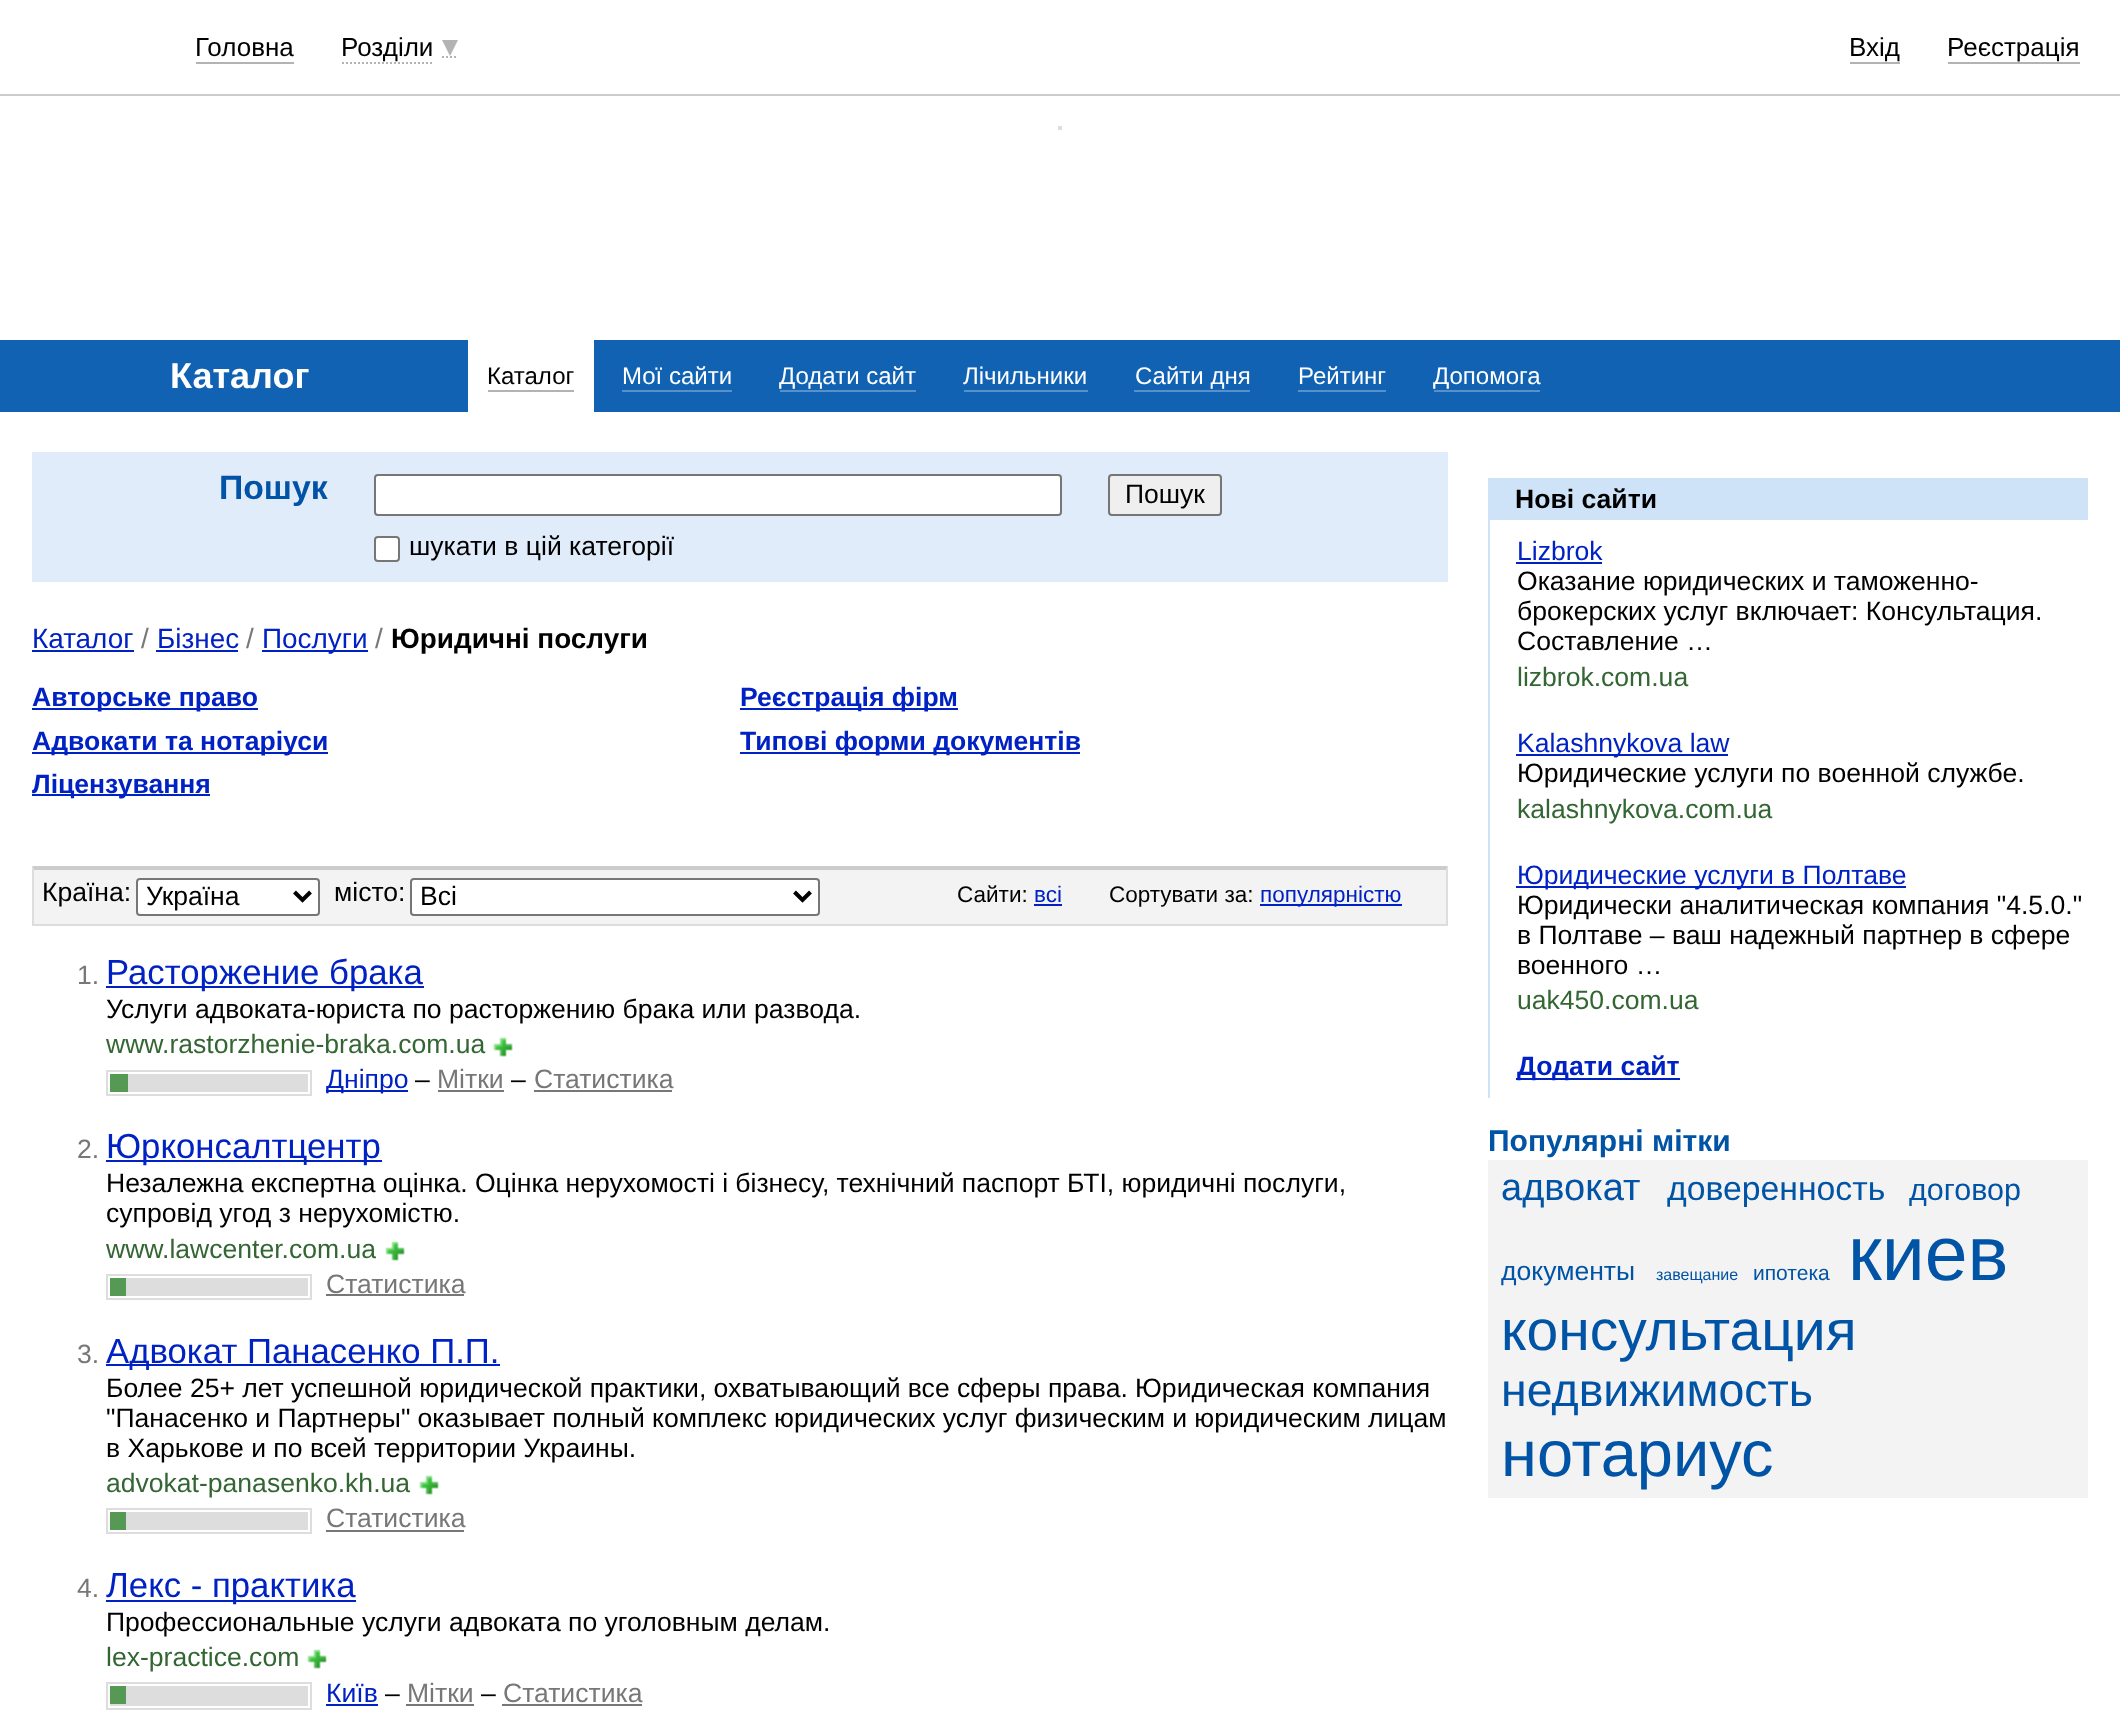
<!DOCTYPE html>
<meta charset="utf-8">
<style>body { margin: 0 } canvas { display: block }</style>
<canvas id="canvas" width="2120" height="1715"></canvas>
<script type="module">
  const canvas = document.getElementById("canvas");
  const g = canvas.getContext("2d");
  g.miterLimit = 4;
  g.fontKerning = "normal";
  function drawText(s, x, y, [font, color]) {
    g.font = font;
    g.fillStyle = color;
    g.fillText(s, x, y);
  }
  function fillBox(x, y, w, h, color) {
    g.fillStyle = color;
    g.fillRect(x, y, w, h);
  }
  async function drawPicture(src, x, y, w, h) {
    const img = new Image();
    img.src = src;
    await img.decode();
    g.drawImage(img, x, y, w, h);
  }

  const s1 = ["26px Liberation Sans", "#000000"];
  const s2 = ["bold 36px Liberation Sans", "#FFFFFF"];
  const s3 = ["24px Liberation Sans", "#000000"];
  const s4 = ["24px Liberation Sans", "#FFFFFF"];
  const s5 = ["bold 33.75px Liberation Sans", "#0053A5"];
  const s6 = ["26.5px Liberation Sans", "#000000"];
  const s7 = ["26.55px Liberation Sans", "#000000"];
  const s8 = ["27.9px Liberation Sans", "#0021C3"];
  const s9 = ["27.9px Liberation Sans", "#777777"];
  const s10 = ["bold 27.9px Liberation Sans", "#000000"];
  const s11 = ["bold 26.55px Liberation Sans", "#0021C3"];
  const s12 = ["22.5px Liberation Sans", "#000000"];
  const s13 = ["22.5px Liberation Sans", "#0021C3"];
  const s14 = ["26.55px Liberation Sans", "#777777"];
  const s15 = ["34.75px Liberation Sans", "#0021C3"];
  const s16 = ["26.55px Liberation Sans", "#336633"];
  const s17 = ["26.55px Liberation Sans", "#0021C3"];
  const s18 = ["bold 26.55px Liberation Sans", "#000000"];
  const s19 = ["bold 30px Liberation Sans", "#0053A5"];
  const s20 = ["38px Liberation Sans", "#0053A5"];
  const s21 = ["33.75px Liberation Sans", "#0053A5"];
  const s22 = ["30.5px Liberation Sans", "#0053A5"];
  const s23 = ["26.55px Liberation Sans", "#0053A5"];
  const s24 = ["16px Liberation Sans", "#0053A5"];
  const s25 = ["21px Liberation Sans", "#0053A5"];
  const s26 = ["77px Liberation Sans", "#0053A5"];
  const s27 = ["57px Liberation Sans", "#0053A5"];
  const s28 = ["46.5px Liberation Sans", "#0053A5"];
  const s29 = ["65px Liberation Sans", "#0053A5"];

  fillBox(0, 0, 2120, 1715, "#FFFFFF");
  fillBox(0, 94, 2120, 2, "#CCCCCC");
  drawText("Головна", 195, 56, s1);
  fillBox(196, 62, 98, 2, "#B3B3B3");
  g.beginPath();
  g.moveTo(342, 63);
  g.lineTo(434, 63);
  g.strokeStyle = "#B3B3B3";
  g.lineWidth = 2;
  g.setLineDash([2, 2]);
  g.stroke();
  g.beginPath();
  g.moveTo(442, 57);
  g.lineTo(458, 57);
  g.stroke();
  drawText("Розділи", 341, 56, s1);
  g.fillStyle = "#B3B3B3";
  g.beginPath();
  g.moveTo(442, 40);
  g.lineTo(458, 40);
  g.lineTo(450, 56);
  g.closePath();
  g.fill();
  drawText("Вхід", 1849, 56, s1);
  fillBox(1850, 62, 50, 2, "#B3B3B3");
  drawText("Реєстрація", 1947, 56, s1);
  fillBox(1948, 62, 132, 2, "#B3B3B3");
  fillBox(1058, 126, 4, 4, "#DDDDDD");
  fillBox(0, 340, 2120, 72, "#1162B3");
  drawText("Каталог", 170, 388, s2);
  fillBox(468, 340, 126, 72, "#FFFFFF");
  drawText("Каталог", 487, 384, s3);
  fillBox(488, 390, 86, 2, "#B3B3B3");
  drawText("Мої сайти", 622, 384, s4);
  fillBox(622, 390, 110, 2, "#5891CA");
  drawText("Додати сайт", 779, 384, s4);
  fillBox(780, 390, 136, 2, "#5891CA");
  drawText("Лічильники", 963, 384, s4);
  fillBox(964, 390, 124, 2, "#5891CA");
  drawText("Сайти дня", 1135, 384, s4);
  fillBox(1134, 390, 116, 2, "#5891CA");
  drawText("Рейтинг", 1298, 384, s4);
  fillBox(1298, 390, 88, 2, "#5891CA");
  drawText("Допомога", 1433, 384, s4);
  fillBox(1434, 390, 106, 2, "#5891CA");
  fillBox(32, 452, 1416, 130, "#E1ECFA");
  drawText("Пошук", 219, 499, s5);
  g.fillStyle = "#EFEFEF";
  g.beginPath();
  g.roundRect(1109, 475, 112, 40, 3);
  g.fill();
  g.strokeStyle = "#767676";
  g.setLineDash([]);
  g.stroke();
  drawText("Пошук", 1125, 503, s6);
  g.fillStyle = "#FFFFFF";
  g.beginPath();
  g.roundRect(375, 475, 686, 40, 3);
  g.fill();
  g.stroke();
  g.beginPath();
  g.roundRect(375, 537, 24, 24, 3);
  g.fill();
  g.stroke();
  drawText("шукати в цій категорії", 409, 555, s7);
  drawText("Каталог", 32, 648, s8);
  fillBox(32, 650, 102, 2, "#0021C3");
  drawText("/", 141, 648, s9);
  drawText("Бізнес", 157, 648, s8);
  fillBox(156, 650, 82, 2, "#0021C3");
  drawText("/", 246, 648, s9);
  fillBox(262, 650, 106, 2, "#0021C3");
  drawText("Послуги", 262, 648, s8);
  drawText("/", 375, 648, s9);
  drawText("Юридичні послуги", 391, 648, s10);
  fillBox(32, 708, 226, 2, "#0021C3");
  drawText("Авторське право", 32, 706, s11);
  fillBox(32, 752, 296, 2, "#0021C3");
  drawText("Адвокати та нотаріуси", 32, 750, s11);
  fillBox(32, 794, 178, 2, "#0021C3");
  drawText("Ліцензування", 32, 793, s11);
  fillBox(740, 708, 218, 2, "#0021C3");
  drawText("Реєстрація фірм", 740, 706, s11);
  fillBox(740, 752, 340, 2, "#0021C3");
  drawText("Типові форми документів", 740, 750, s11);
  fillBox(34, 870, 1412, 54, "#F3F3F3");
  g.fillStyle = "#CCCCCC";
  g.beginPath();
  g.moveTo(32, 866);
  g.lineTo(1448, 866);
  g.lineTo(1446, 870);
  g.lineTo(34, 870);
  g.closePath();
  g.fill();
  g.fillStyle = "#DDDDDD";
  g.beginPath();
  g.moveTo(1448, 866);
  g.lineTo(1448, 926);
  g.lineTo(1446, 924);
  g.lineTo(1446, 870);
  g.closePath();
  g.fill();
  fillBox(32, 924, 1416, 2, "#DDDDDD");
  g.beginPath();
  g.moveTo(32, 926);
  g.lineTo(32, 866);
  g.lineTo(34, 870);
  g.lineTo(34, 924);
  g.closePath();
  g.fill();
  drawText("Країна:", 42, 901, s7);
  g.fillStyle = "#FFFFFF";
  g.beginPath();
  g.roundRect(137, 879, 182, 36, 3);
  g.fill();
  g.stroke();
  g.beginPath();
  g.moveTo(294.5, 892);
  g.lineTo(302.5, 900);
  g.lineTo(310.5, 892);
  g.strokeStyle = "#000000";
  g.lineWidth = 4;
  g.stroke();
  drawText("Україна", 146, 905, s6);
  drawText("місто:", 334, 901, s7);
  g.fillStyle = "#FFFFFF";
  g.beginPath();
  g.roundRect(411, 879, 408, 36, 3);
  g.fill();
  g.strokeStyle = "#767676";
  g.lineWidth = 2;
  g.stroke();
  g.beginPath();
  g.moveTo(794.5, 892);
  g.lineTo(802.5, 900);
  g.lineTo(810.5, 892);
  g.strokeStyle = "#000000";
  g.lineWidth = 4;
  g.stroke();
  drawText("Всі", 420, 905, s6);
  drawText("Сайти:", 957, 902, s12);
  drawText("всі", 1034, 902, s13);
  fillBox(1034, 904, 28, 2, "#0021C3");
  drawText("Сортувати за:", 1109, 902, s12);
  fillBox(1260, 904, 142, 2, "#0021C3");
  drawText("популярністю", 1260, 902, s13);
  drawText("1.", 77, 984, s14);
  fillBox(106, 986, 318, 2, "#0021C3");
  drawText("Расторжение брака", 106, 984, s15);
  drawText("Услуги адвоката-юриста по расторжению брака или развода.", 106, 1018, s7);
  drawText("www.rastorzhenie-braka.com.ua", 106, 1053, s16);
  await drawPicture("pic1.png", 493, 1037, 20, 20);
  g.strokeStyle = "#DDDDDD";
  g.lineWidth = 2;
  g.strokeRect(107, 1071, 204, 24);
  fillBox(128, 1074, 180, 18, "#DDDDDD");
  fillBox(110, 1074, 18, 18, "#559955");
  fillBox(326, 1090, 82, 2, "#0021C3");
  drawText("Дніпро", 326, 1088, s17);
  drawText("–", 415, 1088, s7);
  drawText("Мітки", 437, 1088, s14);
  fillBox(438, 1090, 66, 2, "#777777");
  drawText("–", 511, 1088, s7);
  drawText("Статистика", 534, 1088, s14);
  fillBox(534, 1090, 138, 2, "#777777");
  drawText("2.", 77, 1158, s14);
  fillBox(106, 1160, 276, 2, "#0021C3");
  drawText("Юрконсалтцентр", 106, 1158, s15);
  g.wordSpacing = "-0.1px";
  drawText("Незалежна експертна оцінка. Оцінка нерухомості і бізнесу, технічний паспорт БТІ, юридичні послуги,", 106, 1192, s7);
  g.wordSpacing = "0px";
  drawText("супровід угод з нерухомістю.", 106, 1222, s7);
  drawText("www.lawcenter.com.ua", 106, 1258, s16);
  await drawPicture("pic1.png", 385, 1241, 20, 20);
  g.strokeRect(107, 1275, 204, 24);
  fillBox(126, 1278, 182, 18, "#DDDDDD");
  fillBox(110, 1278, 16, 18, "#559955");
  drawText("Статистика", 326, 1293, s14);
  fillBox(326, 1294, 138, 2, "#777777");
  drawText("3.", 77, 1363, s14);
  fillBox(106, 1364, 394, 2, "#0021C3");
  drawText("Адвокат Панасенко П.П.", 106, 1363, s15);
  g.wordSpacing = "-0.1px";
  drawText("Более 25+ лет успешной юридической практики, охватывающий все сферы права. Юридическая компания", 106, 1397, s7);
  drawText("\"Панасенко и Партнеры\" оказывает полный комплекс юридических услуг физическим и юридическим лицам", 106, 1427, s7);
  g.wordSpacing = "0px";
  drawText("в Харькове и по всей территории Украины.", 106, 1457, s7);
  drawText("advokat-panasenko.kh.ua", 106, 1492, s16);
  await drawPicture("pic1.png", 419, 1475, 20, 20);
  g.strokeRect(107, 1509, 204, 24);
  fillBox(126, 1512, 182, 18, "#DDDDDD");
  fillBox(110, 1512, 16, 18, "#559955");
  drawText("Статистика", 326, 1527, s14);
  fillBox(326, 1530, 138, 2, "#777777");
  drawText("4.", 77, 1597, s14);
  fillBox(106, 1600, 250, 2, "#0021C3");
  drawText("Лекс - практика", 106, 1597, s15);
  drawText("Профессиональные услуги адвоката по уголовным делам.", 106, 1631, s7);
  drawText("lex-practice.com", 106, 1666, s16);
  await drawPicture("pic1.png", 307, 1649, 20, 20);
  g.strokeRect(107, 1683, 204, 26);
  fillBox(110, 1686, 198, 20, "#DDDDDD");
  fillBox(110, 1686, 16, 18, "#559955");
  drawText("Київ", 326, 1702, s17);
  fillBox(326, 1704, 52, 2, "#0021C3");
  drawText("–", 385, 1702, s7);
  drawText("Мітки", 407, 1702, s14);
  fillBox(406, 1704, 68, 2, "#777777");
  drawText("–", 481, 1702, s7);
  drawText("Статистика", 503, 1702, s14);
  fillBox(502, 1704, 140, 2, "#777777");
  fillBox(1488, 478, 600, 42, "#CEE3F7");
  drawText("Нові сайти", 1515, 508, s18);
  fillBox(1488, 520, 2, 578, "#CEE3F7");
  drawText("Lizbrok", 1517, 560, s17);
  fillBox(1516, 562, 86, 2, "#0021C3");
  drawText("Оказание юридических и таможенно-", 1517, 590, s7);
  drawText("брокерских услуг включает: Консультация.", 1517, 620, s7);
  drawText("Составление …", 1517, 650, s7);
  drawText("lizbrok.com.ua", 1517, 686, s16);
  fillBox(1516, 754, 212, 2, "#0021C3");
  drawText("Kalashnykova law", 1517, 752, s17);
  drawText("Юридические услуги по военной службе.", 1517, 782, s7);
  drawText("kalashnykova.com.ua", 1517, 818, s16);
  fillBox(1516, 886, 390, 2, "#0021C3");
  drawText("Юридические услуги в Полтаве", 1517, 884, s17);
  drawText("Юридически аналитическая компания \"4.5.0.\"", 1517, 914, s7);
  drawText("в Полтаве – ваш надежный партнер в сфере", 1517, 944, s7);
  drawText("военного …", 1517, 974, s7);
  drawText("uak450.com.ua", 1517, 1009, s16);
  fillBox(1516, 1078, 164, 2, "#0021C3");
  drawText("Додати сайт", 1517, 1075, s11);
  drawText("Популярні мітки", 1488, 1151, s19);
  fillBox(1488, 1160, 600, 338, "#F3F3F3");
  drawText("адвокат", 1501, 1200, s20);
  drawText("доверенность", 1667, 1200, s21);
  drawText("договор", 1909, 1200, s22);
  drawText("документы", 1501, 1280, s23);
  drawText("завещание", 1656, 1280, s24);
  drawText("ипотека", 1753, 1280, s25);
  drawText("киев", 1848, 1280, s26);
  drawText("консультация", 1501, 1350, s27);
  drawText("недвижимость", 1501, 1406, s28);
  drawText("нотариус", 1501, 1476, s29);
</script>
